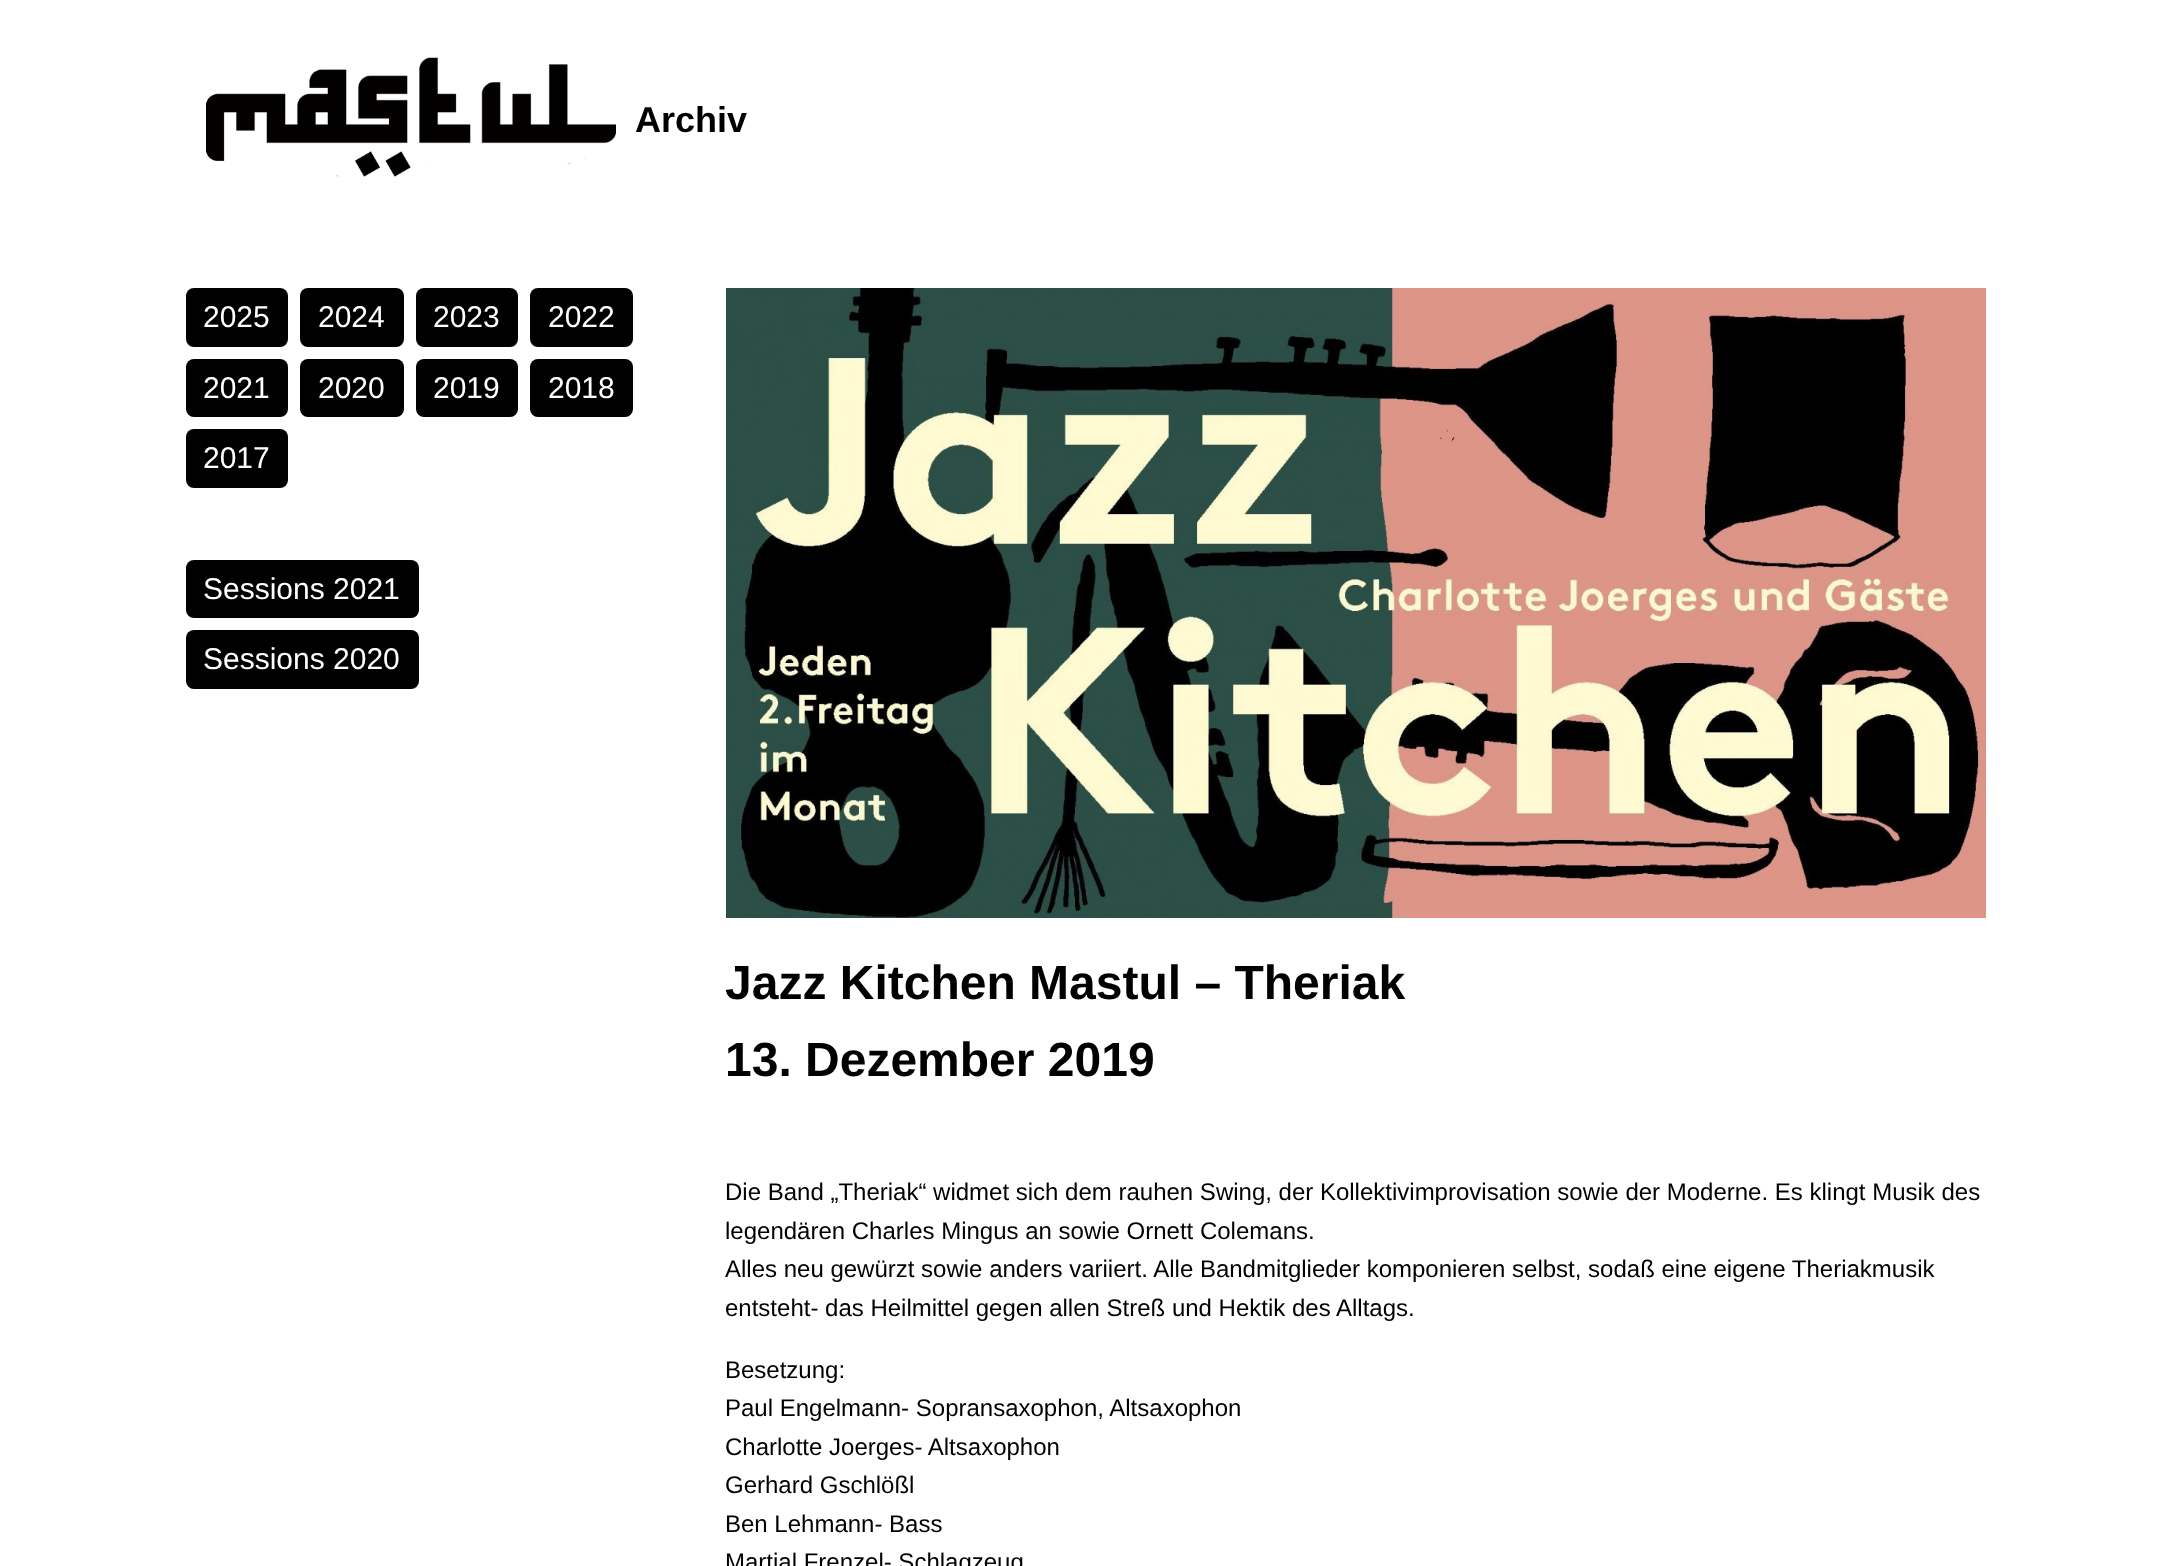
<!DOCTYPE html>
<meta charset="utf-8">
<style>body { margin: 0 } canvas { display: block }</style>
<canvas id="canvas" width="2170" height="1566"></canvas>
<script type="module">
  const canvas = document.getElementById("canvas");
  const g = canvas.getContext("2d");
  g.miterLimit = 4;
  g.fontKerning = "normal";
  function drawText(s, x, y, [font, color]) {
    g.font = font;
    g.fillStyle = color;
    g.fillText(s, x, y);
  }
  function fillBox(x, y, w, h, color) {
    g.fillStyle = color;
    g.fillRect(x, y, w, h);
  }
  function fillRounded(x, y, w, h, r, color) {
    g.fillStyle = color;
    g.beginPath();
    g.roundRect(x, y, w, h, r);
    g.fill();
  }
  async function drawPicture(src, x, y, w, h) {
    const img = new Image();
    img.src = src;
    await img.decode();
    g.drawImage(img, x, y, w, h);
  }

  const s1 = ["bold 36px Liberation Sans", "#000000"];
  const s2 = ["30px Liberation Sans", "#FFFFFF"];
  const s3 = ["bold 48px Liberation Sans", "#000000"];
  const s4 = ["24px Liberation Sans", "#000000"];

  fillBox(0, 0, 2170, 1566, "#FFFFFF");
  await drawPicture("pic1.png", 206, 57, 410, 120);
  drawText("Archiv", 635, 132, s1);
  fillRounded(186, 288, 102, 59, 8, "#000000");
  drawText("2025", 203, 327, s2);
  fillRounded(300, 288, 104, 59, 8, "#000000");
  drawText("2024", 318, 327, s2);
  fillRounded(416, 288, 102, 59, 8, "#000000");
  drawText("2023", 433, 327, s2);
  fillRounded(530, 288, 103, 59, 8, "#000000");
  drawText("2022", 548, 327, s2);
  fillRounded(186, 359, 102, 58, 8, "#000000");
  drawText("2021", 203, 398, s2);
  fillRounded(300, 359, 104, 58, 8, "#000000");
  drawText("2020", 318, 398, s2);
  fillRounded(416, 359, 102, 58, 8, "#000000");
  drawText("2019", 433, 398, s2);
  fillRounded(530, 359, 103, 58, 8, "#000000");
  drawText("2018", 548, 398, s2);
  fillRounded(186, 429, 102, 59, 8, "#000000");
  drawText("2017", 203, 468, s2);
  fillRounded(186, 560, 233, 58, 8, "#000000");
  drawText("Sessions 2021", 203, 599, s2);
  fillRounded(186, 630, 233, 59, 8, "#000000");
  drawText("Sessions 2020", 203, 669, s2);
  await drawPicture("pic2.png", 726, 288, 1260, 630);
  drawText("Jazz Kitchen Mastul – Theriak", 725, 999, s3);
  drawText("13. Dezember 2019", 725, 1076, s3);
  drawText("Die Band „Theriak“ widmet sich dem rauhen Swing, der Kollektivimprovisation sowie der Moderne. Es klingt Musik des", 725, 1200, s4);
  drawText("legendären Charles Mingus an sowie Ornett Colemans.", 725, 1239, s4);
  drawText("Alles neu gewürzt sowie anders variiert. Alle Bandmitglieder komponieren selbst, sodaß eine eigene Theriakmusik", 725, 1277, s4);
  drawText("entsteht- das Heilmittel gegen allen Streß und Hektik des Alltags.", 725, 1316, s4);
  drawText("Besetzung:", 725, 1378, s4);
  drawText("Paul Engelmann- Sopransaxophon, Altsaxophon", 725, 1416, s4);
  drawText("Charlotte Joerges- Altsaxophon", 725, 1455, s4);
  drawText("Gerhard Gschlößl", 725, 1493, s4);
  drawText("Ben Lehmann- Bass", 725, 1532, s4);
  drawText("Martial Frenzel- Schlagzeug", 725, 1570, s4);
</script>
